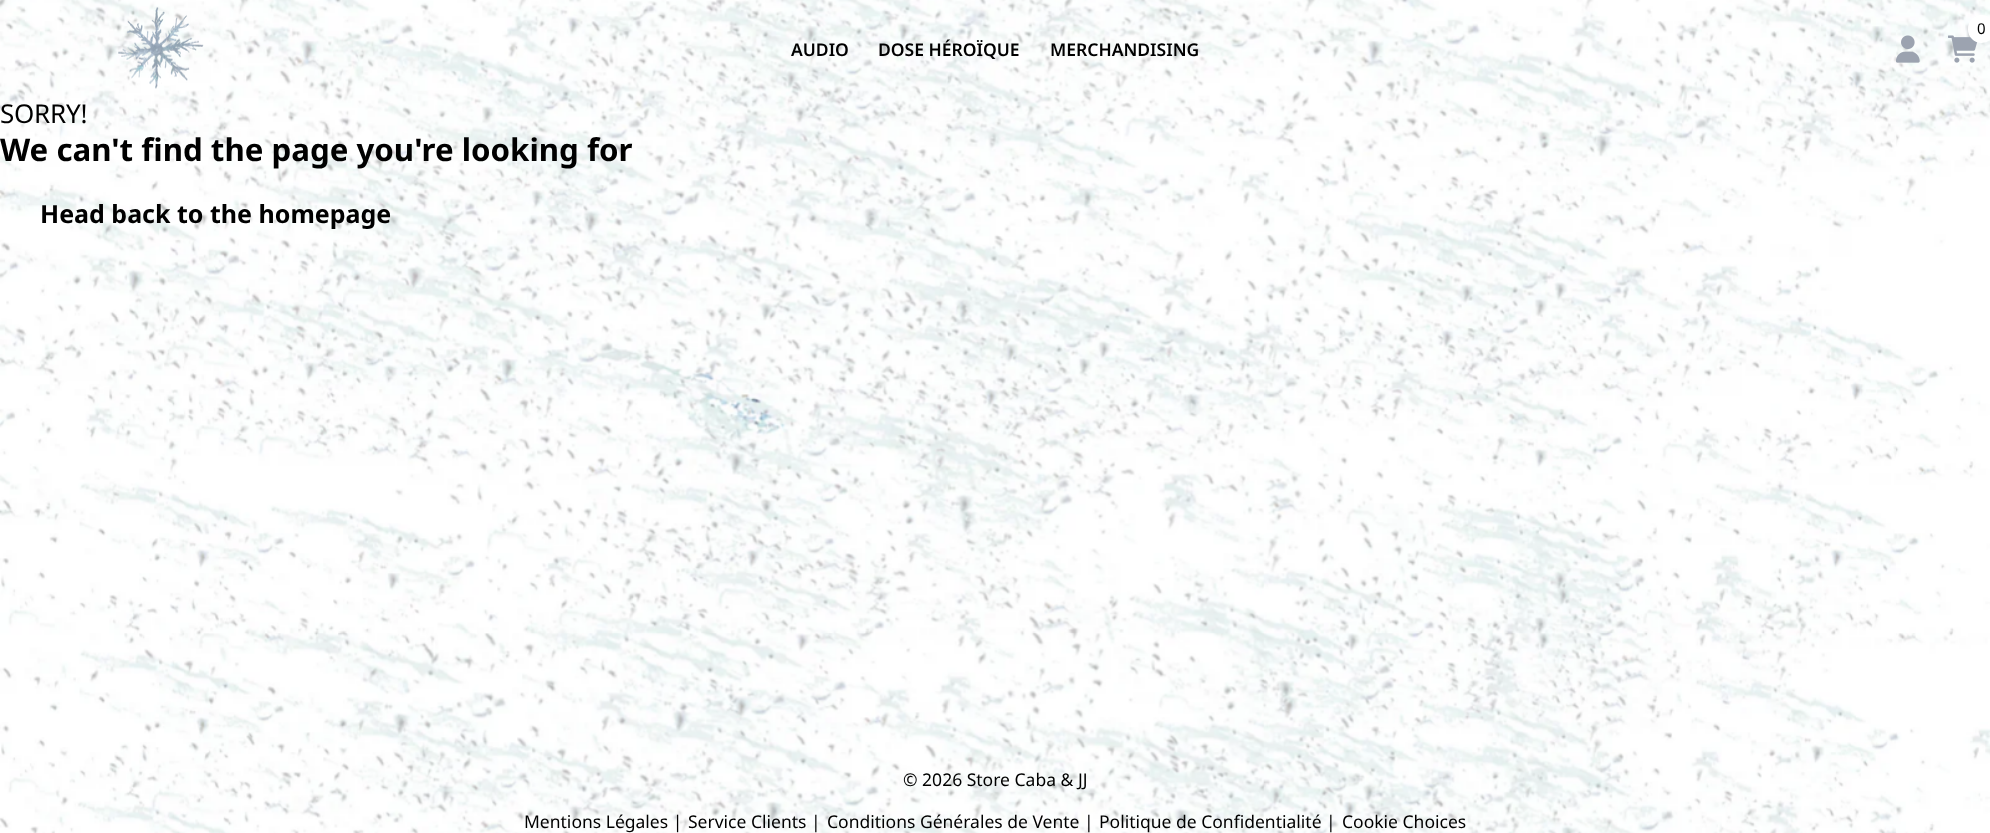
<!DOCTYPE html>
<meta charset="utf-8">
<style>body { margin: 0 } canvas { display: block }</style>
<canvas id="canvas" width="1990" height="833"></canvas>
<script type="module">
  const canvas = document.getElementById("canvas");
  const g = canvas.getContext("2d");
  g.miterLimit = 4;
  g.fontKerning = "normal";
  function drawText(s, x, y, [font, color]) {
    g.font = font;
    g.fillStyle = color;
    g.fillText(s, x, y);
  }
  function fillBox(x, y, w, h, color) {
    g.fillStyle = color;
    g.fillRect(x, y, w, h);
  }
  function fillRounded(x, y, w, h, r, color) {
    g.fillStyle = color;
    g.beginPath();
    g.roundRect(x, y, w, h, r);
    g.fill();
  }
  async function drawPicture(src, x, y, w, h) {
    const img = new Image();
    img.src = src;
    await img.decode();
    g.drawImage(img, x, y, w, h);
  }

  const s1 = ["15px Noto Sans", "#000000"];
  const s2 = ["600 17.5px Noto Sans", "#000000"];
  const s3 = ["26px Noto Sans", "#000000"];
  const s4 = ["bold 31.25px Noto Sans", "#000000"];
  const s5 = ["bold 25px Noto Sans", "#000000"];
  const s6 = ["17.5px Noto Sans", "#000000"];

  fillBox(0, 0, 1990, 833, "#FFFFFF");
  await drawPicture("pic1.png", 0, 0, 1990, 833);
  await drawPicture("pic2.png", 118, 7, 86, 82);
  await drawPicture("pic3.png", 1948, 35, 30, 28);
  fillRounded(1968, 15, 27, 28, 13.5, "#FFFFFF");
  drawText("0", 1977, 34, s1);
  await drawPicture("pic4.png", 1896, 35, 24, 28);
  drawText("AUDIO", 791, 56, s2);
  drawText("DOSE HÉROÏQUE", 878, 56, s2);
  drawText("MERCHANDISING", 1050, 56, s2);
  g.letterSpacing = "-0.25px";
  drawText("SORRY!", 0, 123, s3);
  g.letterSpacing = "0px";
  drawText("We can't find the page you're looking for", 0, 161, s4);
  drawText("Head back to the homepage", 40, 223, s5);
  drawText("© 2026 Store Caba & JJ", 903, 786, s6);
  drawText("Mentions Légales |", 524, 828, s6);
  drawText("Service Clients |", 688, 828, s6);
  drawText("Conditions Générales de Vente |", 827, 828, s6);
  drawText("Politique de Confidentialité |", 1099, 828, s6);
  drawText("Cookie Choices", 1342, 828, s6);
</script>
